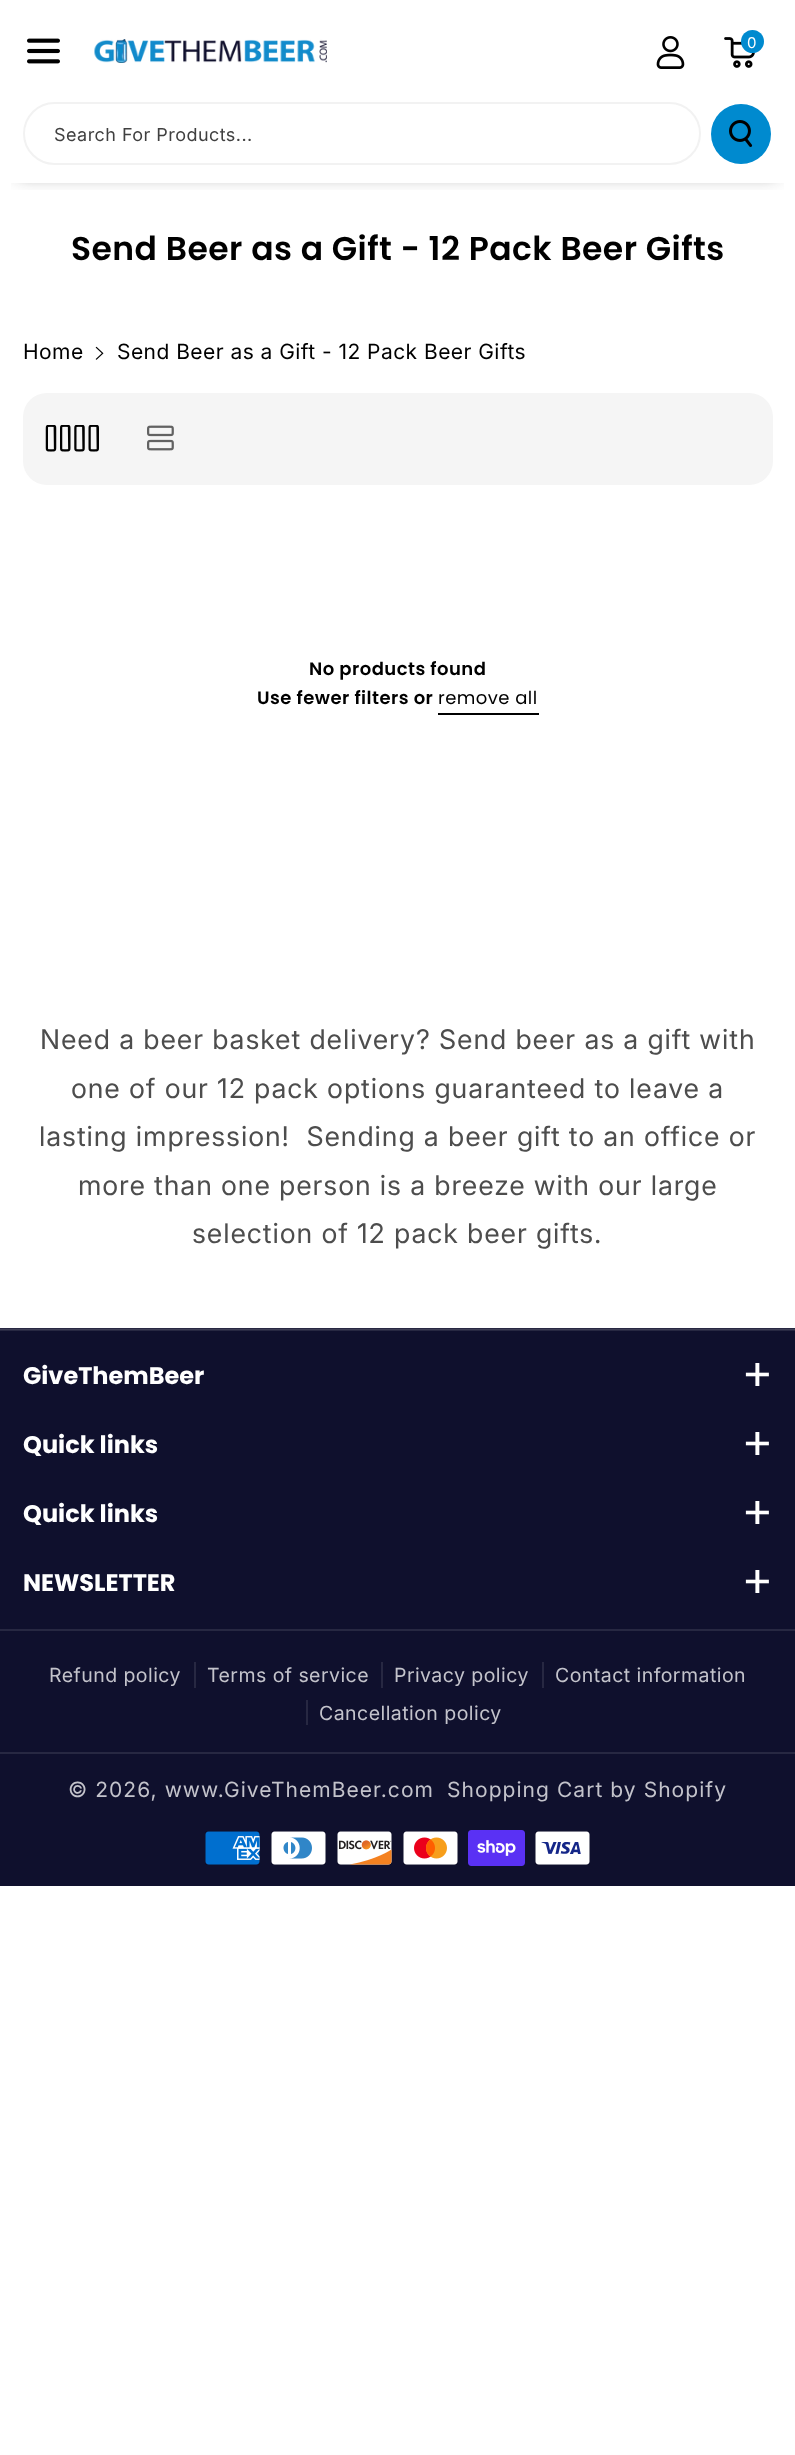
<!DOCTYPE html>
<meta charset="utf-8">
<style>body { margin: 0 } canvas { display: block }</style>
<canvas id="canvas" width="795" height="2455"></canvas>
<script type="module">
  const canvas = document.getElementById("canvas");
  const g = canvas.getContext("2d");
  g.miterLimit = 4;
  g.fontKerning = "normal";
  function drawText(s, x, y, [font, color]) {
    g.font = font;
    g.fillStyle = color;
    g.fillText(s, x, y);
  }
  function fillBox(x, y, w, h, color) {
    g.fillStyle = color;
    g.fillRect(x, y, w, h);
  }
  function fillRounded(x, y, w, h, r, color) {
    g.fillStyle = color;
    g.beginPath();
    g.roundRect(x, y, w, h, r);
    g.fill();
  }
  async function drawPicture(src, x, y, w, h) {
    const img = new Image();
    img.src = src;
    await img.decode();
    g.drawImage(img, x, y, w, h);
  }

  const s1 = ["15px Inter", "#FFFFFF"];
  const s2 = ["18px Inter", "#404040"];
  const s3 = ["600 33px Poppins", "#000000"];
  const s4 = ["21px Inter", "#000000"];
  const s5 = ["600 18px Poppins", "#000000"];
  const s6 = ["18px Poppins", "#000000"];
  const s7 = ["27px 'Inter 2'", "#4D4D4D"];
  const s8 = ["bold 24px Poppins", "#FFFFFF"];
  const s9 = ["45px Poppins", "#FFFFFF"];
  const s10 = ["19.5px Inter", "#C3C3CB"];
  const s11 = ["21px Inter", "#C3C3CB"];

  fillBox(0, 0, 795, 2455, "#FFFFFF");
  g.save();
  g.beginPath();
  g.rect(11, 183, 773, 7);
  g.clip();
  g.fillStyle = "rgba(18, 18, 18, 0.6)";
  g.filter = "blur(9px)";
  g.beginPath();
  g.rect(18, 27, 759, 147);
  g.fill();
  g.filter = "none";
  g.restore();
  await drawPicture("pic1.png", 27, 38, 33, 26);
  await drawPicture("pic2.png", 94, 39, 233, 24);
  await drawPicture("pic3.png", 656, 36, 29, 33);
  await drawPicture("pic4.png", 724, 37, 31, 31);
  g.fillStyle = "#008ACF";
  g.beginPath();
  g.arc(752.5, 41.5, 11.5, 0, Math.PI * 2);
  g.fill();
  g.letterSpacing = "0.45px";
  drawText("0", 747, 48, s1);
  g.beginPath();
  g.roundRect(24, 103, 676, 61, 30.5);
  g.strokeStyle = "#F2F2F2";
  g.lineWidth = 2;
  g.stroke();
  drawText("Search For Products...", 54, 141, s2);
  g.fillStyle = "#008ACF";
  g.beginPath();
  g.arc(741, 134, 30, 0, Math.PI * 2);
  g.fill();
  await drawPicture("pic5.png", 729, 120, 24, 27);
  drawText("Send Beer as a Gift - 12 Pack Beer Gifts", 71, 260, s3);
  drawText("Home", 23, 359, s4);
  await drawPicture("pic6.png", 95, 346, 9, 14);
  drawText("Send Beer as a Gift - 12 Pack Beer Gifts", 117, 359, s4);
  fillRounded(23, 393, 750, 92, 24, "#F5F5F5");
  await drawPicture("pic7.png", 45, 425, 54, 27);
  await drawPicture("pic8.png", 147, 425, 27, 26);
  drawText("No products found", 309, 675, s5);
  drawText("Use fewer filters or", 257, 704, s5);
  drawText("remove all", 438, 704, s6);
  fillBox(438, 713, 101, 2, "#000000");
  g.letterSpacing = "0.9px";
  drawText("Need a beer basket delivery? Send beer as a gift with", 40, 1049, s7);
  drawText("one of our 12 pack options guaranteed to leave a", 71, 1098, s7);
  drawText("lasting impression!  Sending a beer gift to an office or", 39, 1146, s7);
  drawText("more than one person is a breeze with our large", 78, 1195, s7);
  drawText("selection of 12 pack beer gifts.", 192, 1243, s7);
  fillBox(0, 1331, 795, 555, "#0F102D");
  fillBox(0, 1330, 795, 1, "#272842");
  fillBox(0, 1328, 795, 1, "#272842");
  fillBox(0, 1329, 795, 1, "#3D3E55");
  g.letterSpacing = "0px";
  drawText("GiveThemBeer", 23, 1384, s8);
  drawText("+", 742, 1391, s9);
  drawText("Quick links", 23, 1453, s8);
  drawText("+", 742, 1460, s9);
  drawText("Quick links", 23, 1522, s8);
  drawText("+", 742, 1529, s9);
  drawText("NEWSLETTER", 23, 1591, s8);
  drawText("+", 742, 1598, s9);
  fillBox(0, 1629, 795, 2, "#272842");
  g.letterSpacing = "0.45px";
  drawText("Refund policy", 49, 1682, s10);
  fillBox(194, 1662, 2, 26, "#272842");
  drawText("Terms of service", 207, 1682, s10);
  fillBox(381, 1662, 2, 26, "#272842");
  drawText("Privacy policy", 394, 1682, s10);
  fillBox(542, 1662, 2, 26, "#272842");
  drawText("Contact information", 555, 1682, s10);
  fillBox(306, 1700, 2, 25, "#272842");
  drawText("Cancellation policy", 319, 1720, s10);
  fillBox(0, 1752, 795, 2, "#272842");
  g.letterSpacing = "1.05px";
  drawText("© 2026, www.GiveThemBeer.com", 68, 1797, s11);
  drawText("Shopping Cart by Shopify", 447, 1797, s11);
  await drawPicture("pic9.png", 205, 1831, 55, 34);
  await drawPicture("pic10.png", 271, 1831, 55, 34);
  await drawPicture("pic11.png", 337, 1831, 55, 34);
  await drawPicture("pic12.png", 403, 1831, 55, 34);
  await drawPicture("pic13.png", 468, 1830, 57, 36);
  await drawPicture("pic14.png", 535, 1831, 55, 34);
</script>
